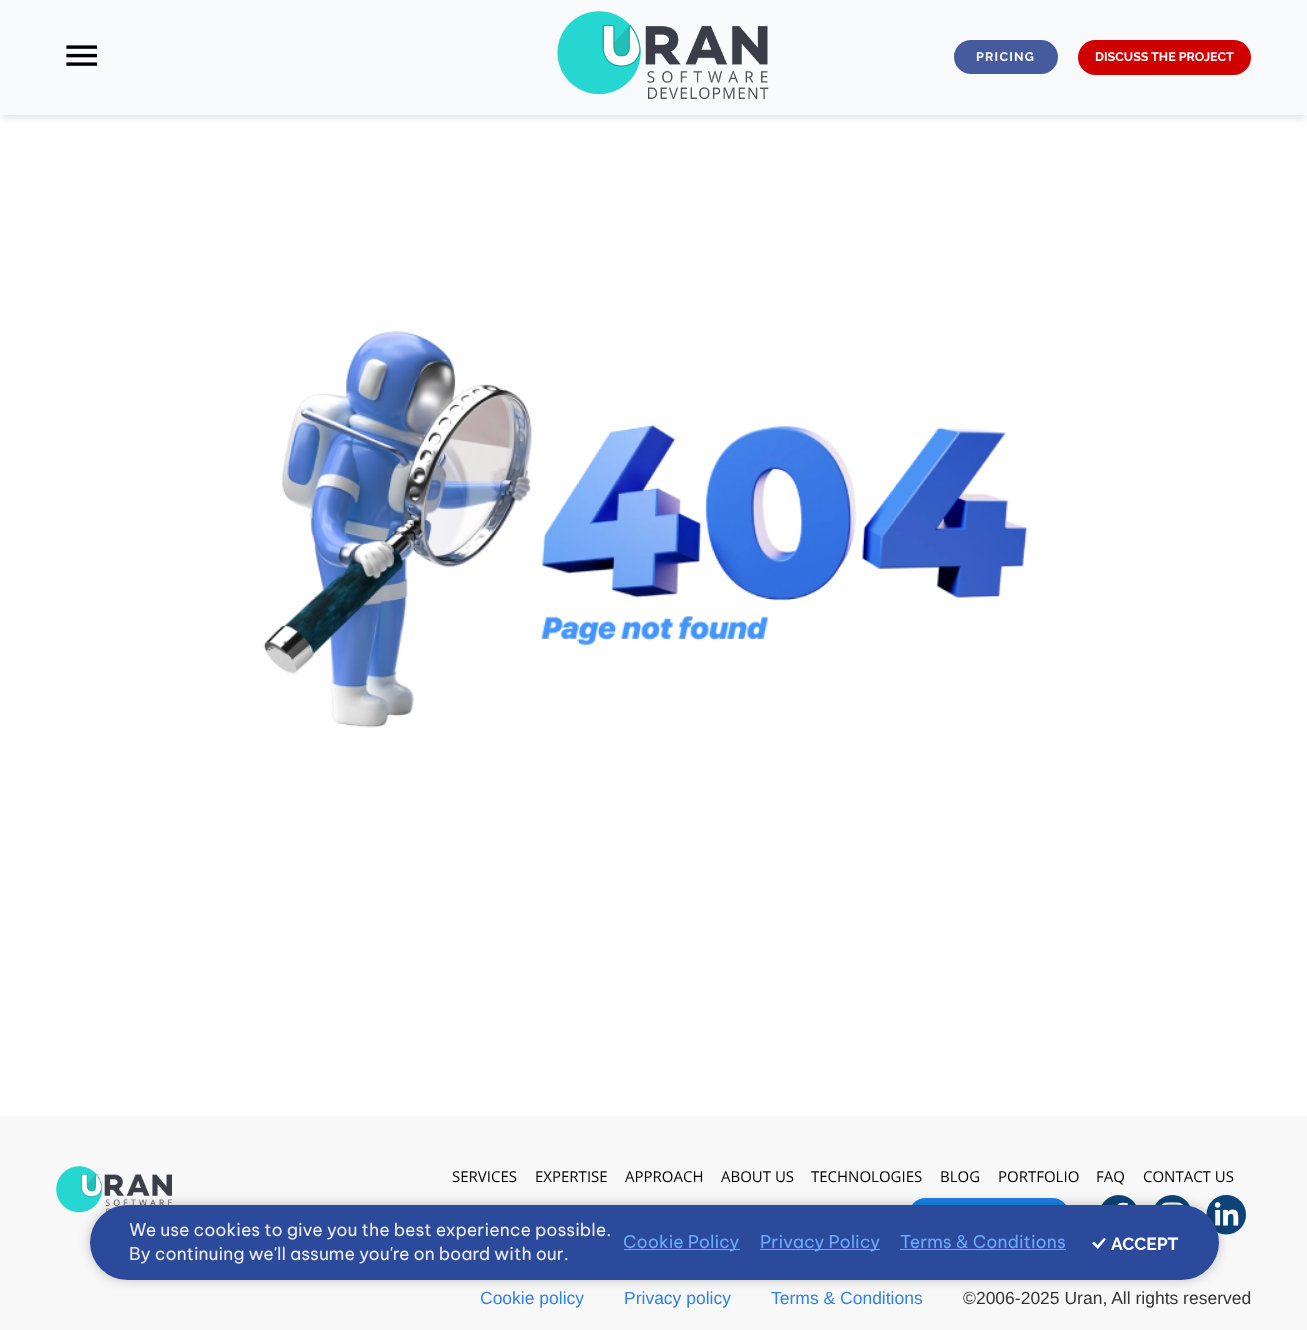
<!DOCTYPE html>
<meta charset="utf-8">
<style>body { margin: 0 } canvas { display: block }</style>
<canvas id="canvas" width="1307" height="1330"></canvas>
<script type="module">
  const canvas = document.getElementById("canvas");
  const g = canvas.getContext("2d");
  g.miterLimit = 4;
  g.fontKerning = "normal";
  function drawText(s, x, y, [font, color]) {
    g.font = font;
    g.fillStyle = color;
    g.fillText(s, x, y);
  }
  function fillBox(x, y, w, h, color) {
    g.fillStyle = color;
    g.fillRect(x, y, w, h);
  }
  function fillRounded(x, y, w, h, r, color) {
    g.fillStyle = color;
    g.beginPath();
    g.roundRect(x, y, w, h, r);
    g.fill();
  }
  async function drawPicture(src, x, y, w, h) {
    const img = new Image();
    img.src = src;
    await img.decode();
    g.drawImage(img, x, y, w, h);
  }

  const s1 = ["100 12.5px Raleway", "#FFFFFF"];
  const s2 = ["15px Open Sans", "#000000"];
  const s3 = ["17.5px Liberation Sans", "#2F80ED"];
  const s4 = ["17.5px Liberation Sans", "#333333"];
  const s5 = ["17.5px Be Vietnam Pro", "#EAEAEA"];
  const s6 = ["17.5px Be Vietnam Pro", "#6AAAFF"];
  const s7 = ["100 17.5px Raleway", "#FFFFFF"];

  fillBox(0, 0, 1307, 1330, "#FFFFFF");
  g.fillStyle = "rgba(211, 215, 221, 0.5)";
  g.filter = "blur(2.5px)";
  g.beginPath();
  g.rect(3, 5, 1302, 110);
  g.fill();
  g.filter = "none";
  g.filter = "blur(4px)";
  g.beginPath();
  g.rect(1, 6, 1305, 113);
  g.fill();
  g.filter = "none";
  fillBox(0, 0, 1307, 115, "#F9FAFB");
  await drawPicture("pic1.png", 66, 45, 31, 21);
  await drawPicture("pic2.png", 557, 11, 212, 89);
  fillRounded(954, 40, 104, 34, 17, "#465A9E");
  g.letterSpacing = "1.25px";
  drawText("PRICING", 976, 61, s1);
  fillRounded(1078, 40, 173, 35, 17.5, "#D10000");
  g.letterSpacing = "0px";
  drawText("DISCUSS THE PROJECT", 1095, 61, s1);
  await drawPicture("pic3.png", 263, 331, 765, 397);
  fillBox(0, 1116, 1307, 214, "#F8F8F8");
  await drawPicture("pic4.png", 56, 1166, 116, 47);
  drawText("SERVICES", 452, 1182, s2);
  drawText("EXPERTISE", 535, 1182, s2);
  drawText("APPROACH", 625, 1182, s2);
  drawText("ABOUT US", 721, 1182, s2);
  drawText("TECHNOLOGIES", 811, 1182, s2);
  drawText("BLOG", 940, 1182, s2);
  drawText("PORTFOLIO", 998, 1182, s2);
  drawText("FAQ", 1096, 1182, s2);
  drawText("CONTACT US", 1143, 1182, s2);
  fillRounded(909, 1198, 160, 33, 16.5, "#1B80E3");
  await drawPicture("pic5.png", 1101, 1195, 35, 10);
  await drawPicture("pic6.png", 1155, 1195, 36, 12);
  await drawPicture("pic7.png", 1206, 1195, 40, 40);
  drawText("Cookie policy", 480, 1304, s3);
  drawText("Privacy policy", 624, 1304, s3);
  drawText("Terms & Conditions", 771, 1304, s3);
  drawText("©2006-2025 Uran, All rights reserved", 963, 1304, s4);
  g.fillStyle = "rgba(0, 0, 0, 0.23)";
  g.filter = "blur(6px)";
  g.beginPath();
  g.roundRect(90, 1205, 1129, 75, 37.5);
  g.fill();
  g.filter = "none";
  fillRounded(90, 1205, 1129, 75, 37.5, "#2C4A9C");
  drawText("We use cookies to give you the best experience possible.", 129, 1236, s5);
  fillBox(624, 1249, 116, 1, "#6AAAFF");
  drawText("Cookie Policy", 623, 1248, s6);
  fillBox(760, 1249, 120, 1, "#6AAAFF");
  drawText("Privacy Policy", 760, 1248, s6);
  drawText("Terms & Conditions", 900, 1248, s6);
  fillBox(900, 1249, 166, 1, "#6AAAFF");
  drawText("By continuing we'll assume you're on board with our.", 129, 1260, s5);
  await drawPicture("pic8.png", 1092, 1237, 14, 12);
  drawText("ACCEPT", 1111, 1250, s7);
</script>
